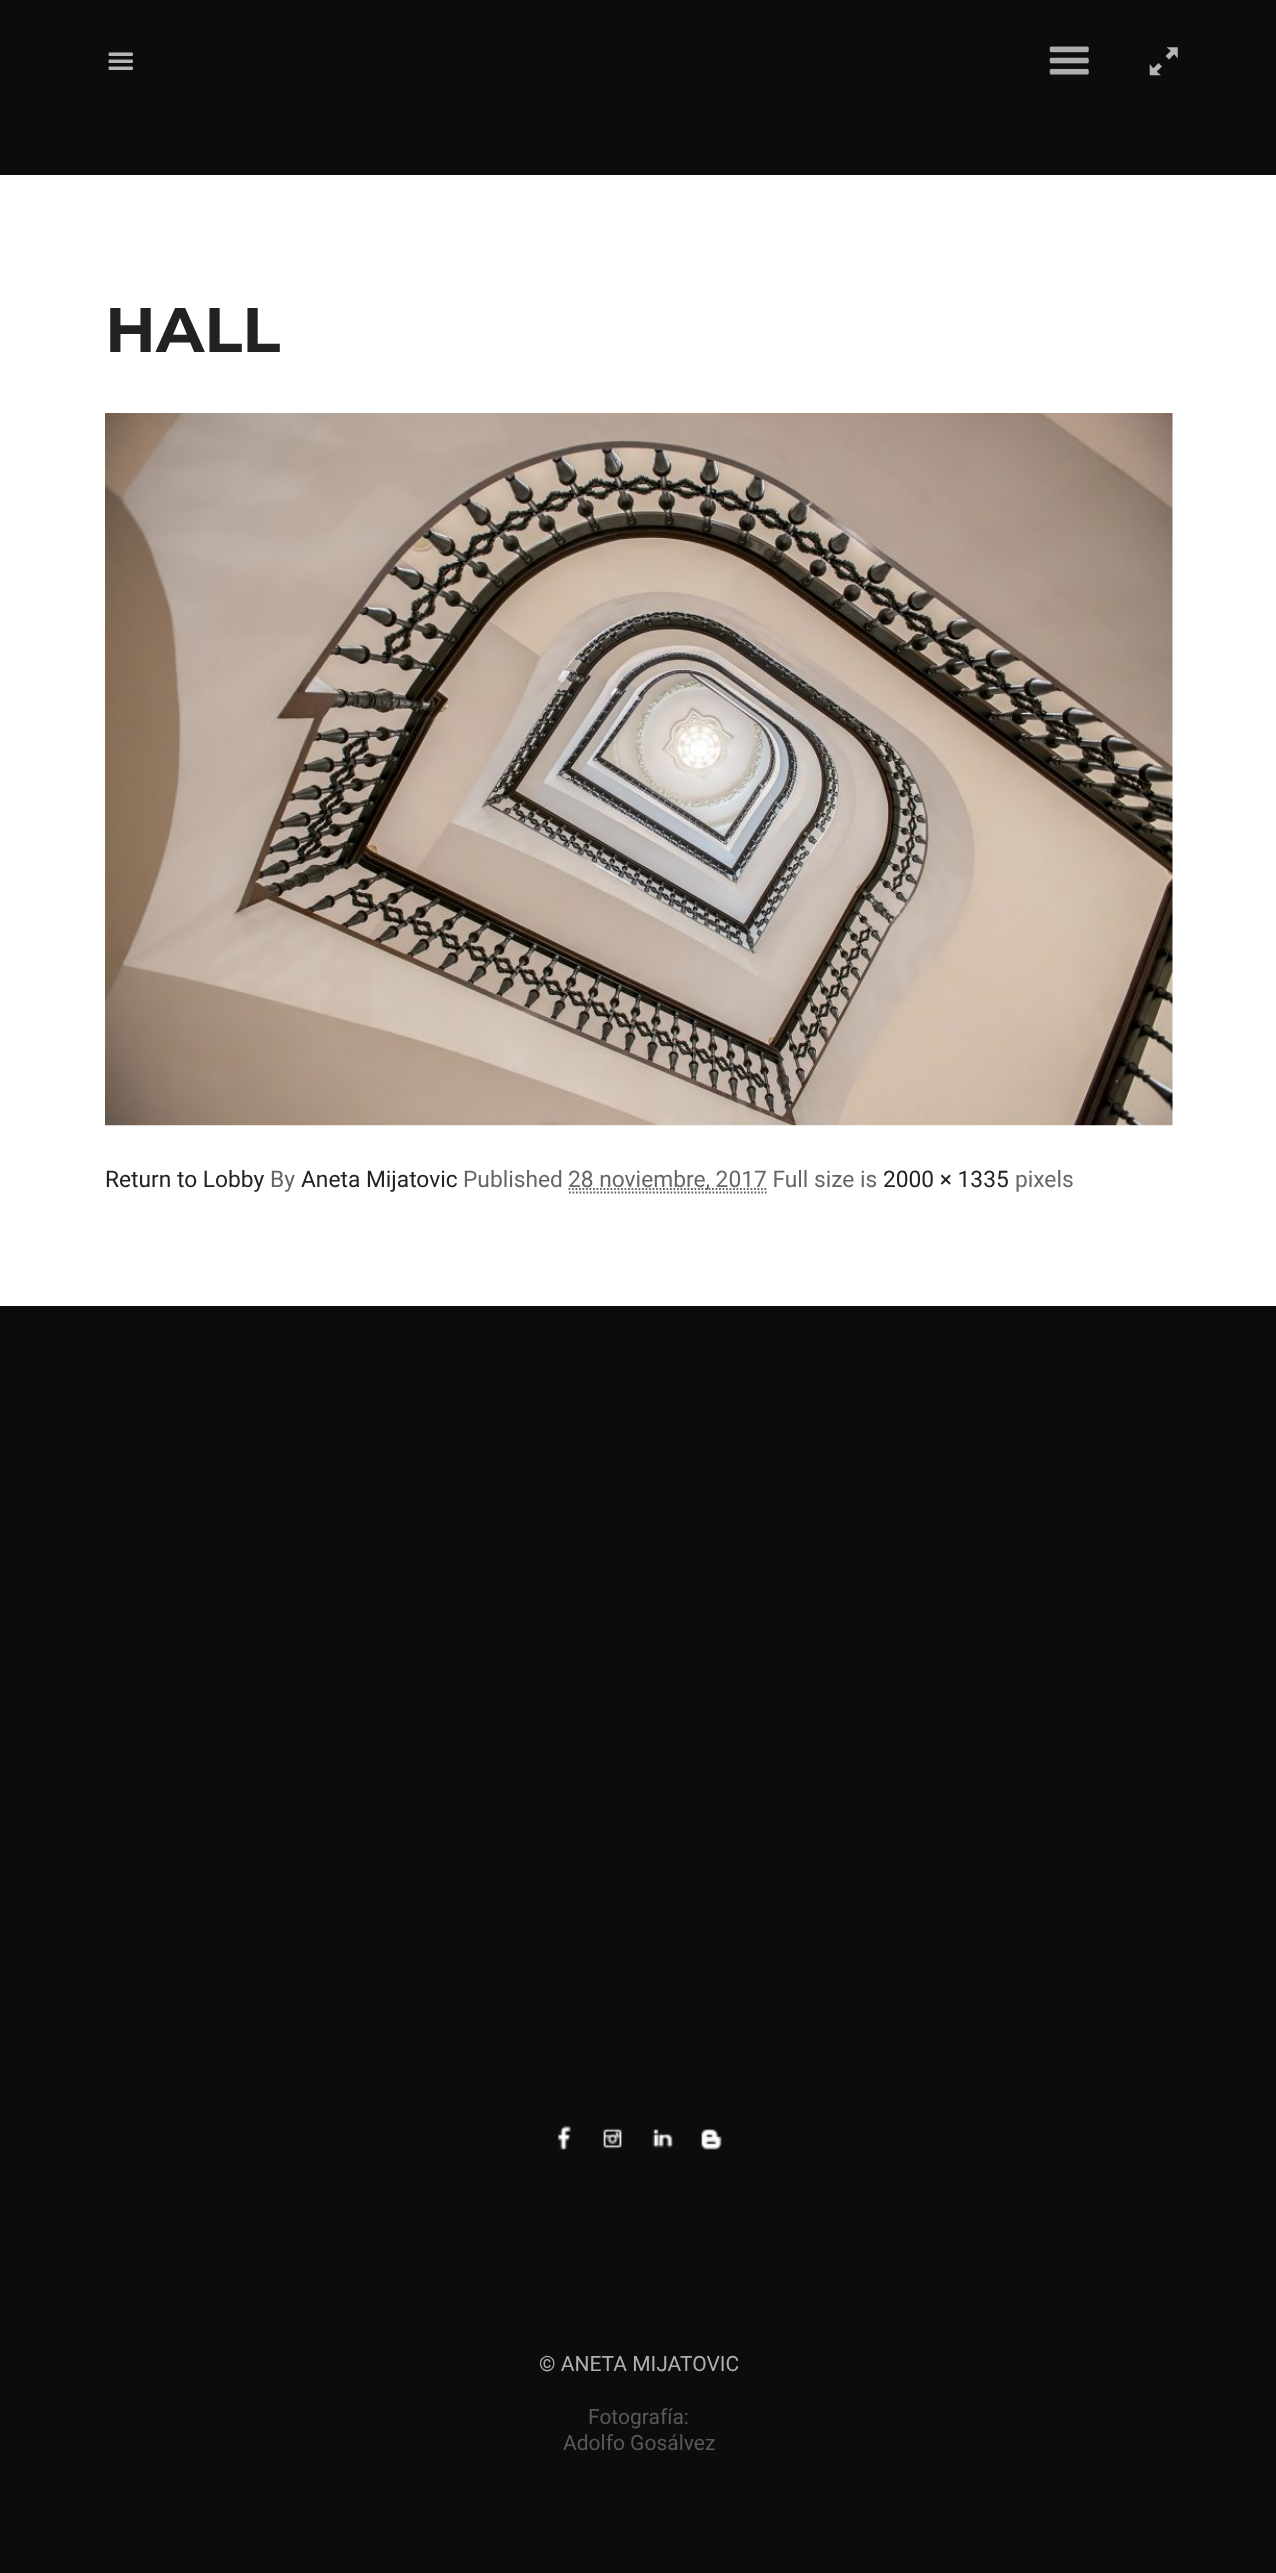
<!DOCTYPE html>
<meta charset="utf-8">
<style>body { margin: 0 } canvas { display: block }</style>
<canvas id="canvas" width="1276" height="2573"></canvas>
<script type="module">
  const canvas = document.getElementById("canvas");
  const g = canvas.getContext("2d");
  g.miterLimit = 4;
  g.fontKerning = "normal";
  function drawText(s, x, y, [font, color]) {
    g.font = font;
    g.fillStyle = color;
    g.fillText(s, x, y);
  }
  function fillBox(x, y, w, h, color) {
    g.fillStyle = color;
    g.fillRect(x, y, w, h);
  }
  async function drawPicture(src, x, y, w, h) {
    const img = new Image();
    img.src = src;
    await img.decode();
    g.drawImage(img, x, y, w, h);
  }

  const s1 = ["bold 63px Montserrat", "#222222"];
  const s2 = ["22.75px Roboto", "#222222"];
  const s3 = ["22.75px Roboto", "#666666"];
  const s4 = ["21px Roboto", "#AFAFAF"];
  const s5 = ["21px Roboto", "#595959"];

  fillBox(0, 0, 1276, 2573, "#0C0C0C");
  await drawPicture("pic1.png", 108, 52, 25, 18);
  await drawPicture("pic2.png", 1049, 46, 40, 29);
  await drawPicture("pic3.png", 1149, 47, 29, 29);
  fillBox(0, 175, 1276, 1131, "#FFFFFF");
  drawText("HALL", 105, 352, s1);
  await drawPicture("pic4.png", 105, 413, 1068, 713);
  drawText("Return to Lobby", 105, 1187, s2);
  drawText("By", 270, 1187, s3);
  drawText("Aneta Mijatovic", 301, 1187, s2);
  drawText("Published", 463, 1187, s3);
  g.beginPath();
  g.moveTo(568.5, 1189);
  g.lineTo(767, 1189);
  g.strokeStyle = "#666666";
  g.lineWidth = 1.8;
  g.setLineDash([1.75, 1.75]);
  g.stroke();
  drawText("28 noviembre, 2017 Full size is", 568, 1187, s3);
  g.beginPath();
  g.moveTo(569, 1192.5);
  g.lineTo(766.5, 1192.5);
  g.stroke();
  drawText("2000 × 1335", 883, 1187, s2);
  drawText("pixels", 1015, 1187, s3);
  await drawPicture("pic5.png", 557, 2125, 14, 25);
  await drawPicture("pic6.png", 603, 2128, 19, 21);
  await drawPicture("pic7.png", 652, 2129, 21, 19);
  await drawPicture("pic8.png", 701, 2129, 21, 21);
  drawText("© ANETA MIJATOVIC", 539, 2371, s4);
  drawText("Fotografía:", 588, 2424, s5);
  drawText("Adolfo Gosálvez", 563, 2450, s5);
</script>
